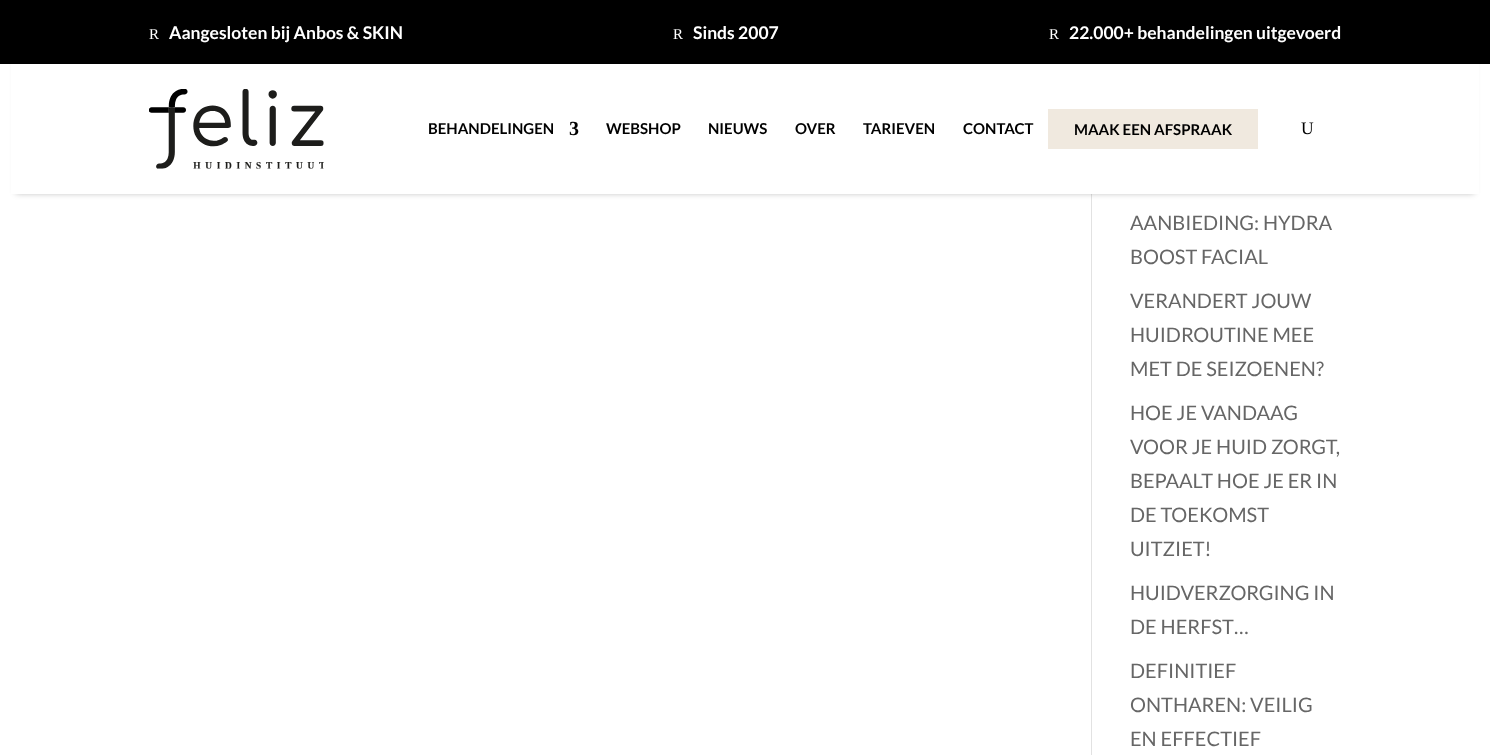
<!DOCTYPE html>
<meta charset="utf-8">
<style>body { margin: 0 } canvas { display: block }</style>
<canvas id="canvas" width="1490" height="755"></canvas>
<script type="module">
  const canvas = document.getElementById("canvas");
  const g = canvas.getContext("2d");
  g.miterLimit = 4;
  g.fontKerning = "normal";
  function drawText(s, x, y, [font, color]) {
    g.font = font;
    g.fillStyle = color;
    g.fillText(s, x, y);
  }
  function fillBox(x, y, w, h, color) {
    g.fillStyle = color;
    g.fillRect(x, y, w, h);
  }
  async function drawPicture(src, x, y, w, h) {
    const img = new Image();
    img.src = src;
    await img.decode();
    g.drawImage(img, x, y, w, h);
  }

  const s1 = ["15px Liberation Serif", "#FFFFFF"];
  const s2 = ["bold 17.5px Lato", "#FFFFFF"];
  const s3 = ["bold 15px Lato", "#000000"];
  const s4 = ["bold 20px Liberation Serif", "#000000"];
  const s5 = ["17.5px Liberation Serif", "#000000"];
  const s6 = ["20px Lato", "#666666"];

  fillBox(0, 0, 1490, 755, "#FFFFFF");
  fillBox(1091, 194, 1, 561, "#E2E2E2");
  g.fillStyle = "rgba(0, 0, 0, 0.3)";
  g.filter = "blur(3px)";
  g.beginPath();
  g.rect(16, 31, 1458, 162);
  g.fill();
  g.filter = "none";
  fillBox(11, 64, 1468, 130, "#FFFFFF");
  fillBox(0, 0, 1490, 64, "#000000");
  drawText("R", 149, 39, s1);
  drawText("Aangesloten bij Anbos & SKIN", 169, 39, s2);
  drawText("R", 673, 39, s1);
  drawText("Sinds 2007", 693, 39, s2);
  drawText("R", 1049, 39, s1);
  drawText("22.000+ behandelingen uitgevoerd", 1069, 39, s2);
  await drawPicture("pic1.png", 149, 89, 175, 80);
  drawText("BEHANDELINGEN", 428, 134, s3);
  drawText("3", 569, 135, s4);
  drawText("WEBSHOP", 606, 134, s3);
  drawText("NIEUWS", 708, 134, s3);
  drawText("OVER", 795, 134, s3);
  drawText("TARIEVEN", 863, 134, s3);
  drawText("CONTACT", 963, 134, s3);
  fillBox(1048, 109, 210, 40, "#F0E9DF");
  drawText("MAAK EEN AFSPRAAK", 1074, 135, s3);
  drawText("U", 1301, 134, s5);
  drawText("AANBIEDING: HYDRA", 1130, 230, s6);
  drawText("BOOST FACIAL", 1130, 264, s6);
  drawText("VERANDERT JOUW", 1130, 308, s6);
  drawText("HUIDROUTINE MEE", 1130, 342, s6);
  drawText("MET DE SEIZOENEN?", 1130, 376, s6);
  drawText("HOE JE VANDAAG", 1130, 420, s6);
  drawText("VOOR JE HUID ZORGT,", 1130, 454, s6);
  drawText("BEPAALT HOE JE ER IN", 1130, 488, s6);
  drawText("DE TOEKOMST", 1130, 522, s6);
  drawText("UITZIET!", 1130, 556, s6);
  drawText("HUIDVERZORGING IN", 1130, 600, s6);
  drawText("DE HERFST…", 1130, 634, s6);
  drawText("DEFINITIEF", 1130, 678, s6);
  drawText("ONTHAREN: VEILIG", 1130, 712, s6);
  drawText("EN EFFECTIEF", 1130, 746, s6);
</script>
